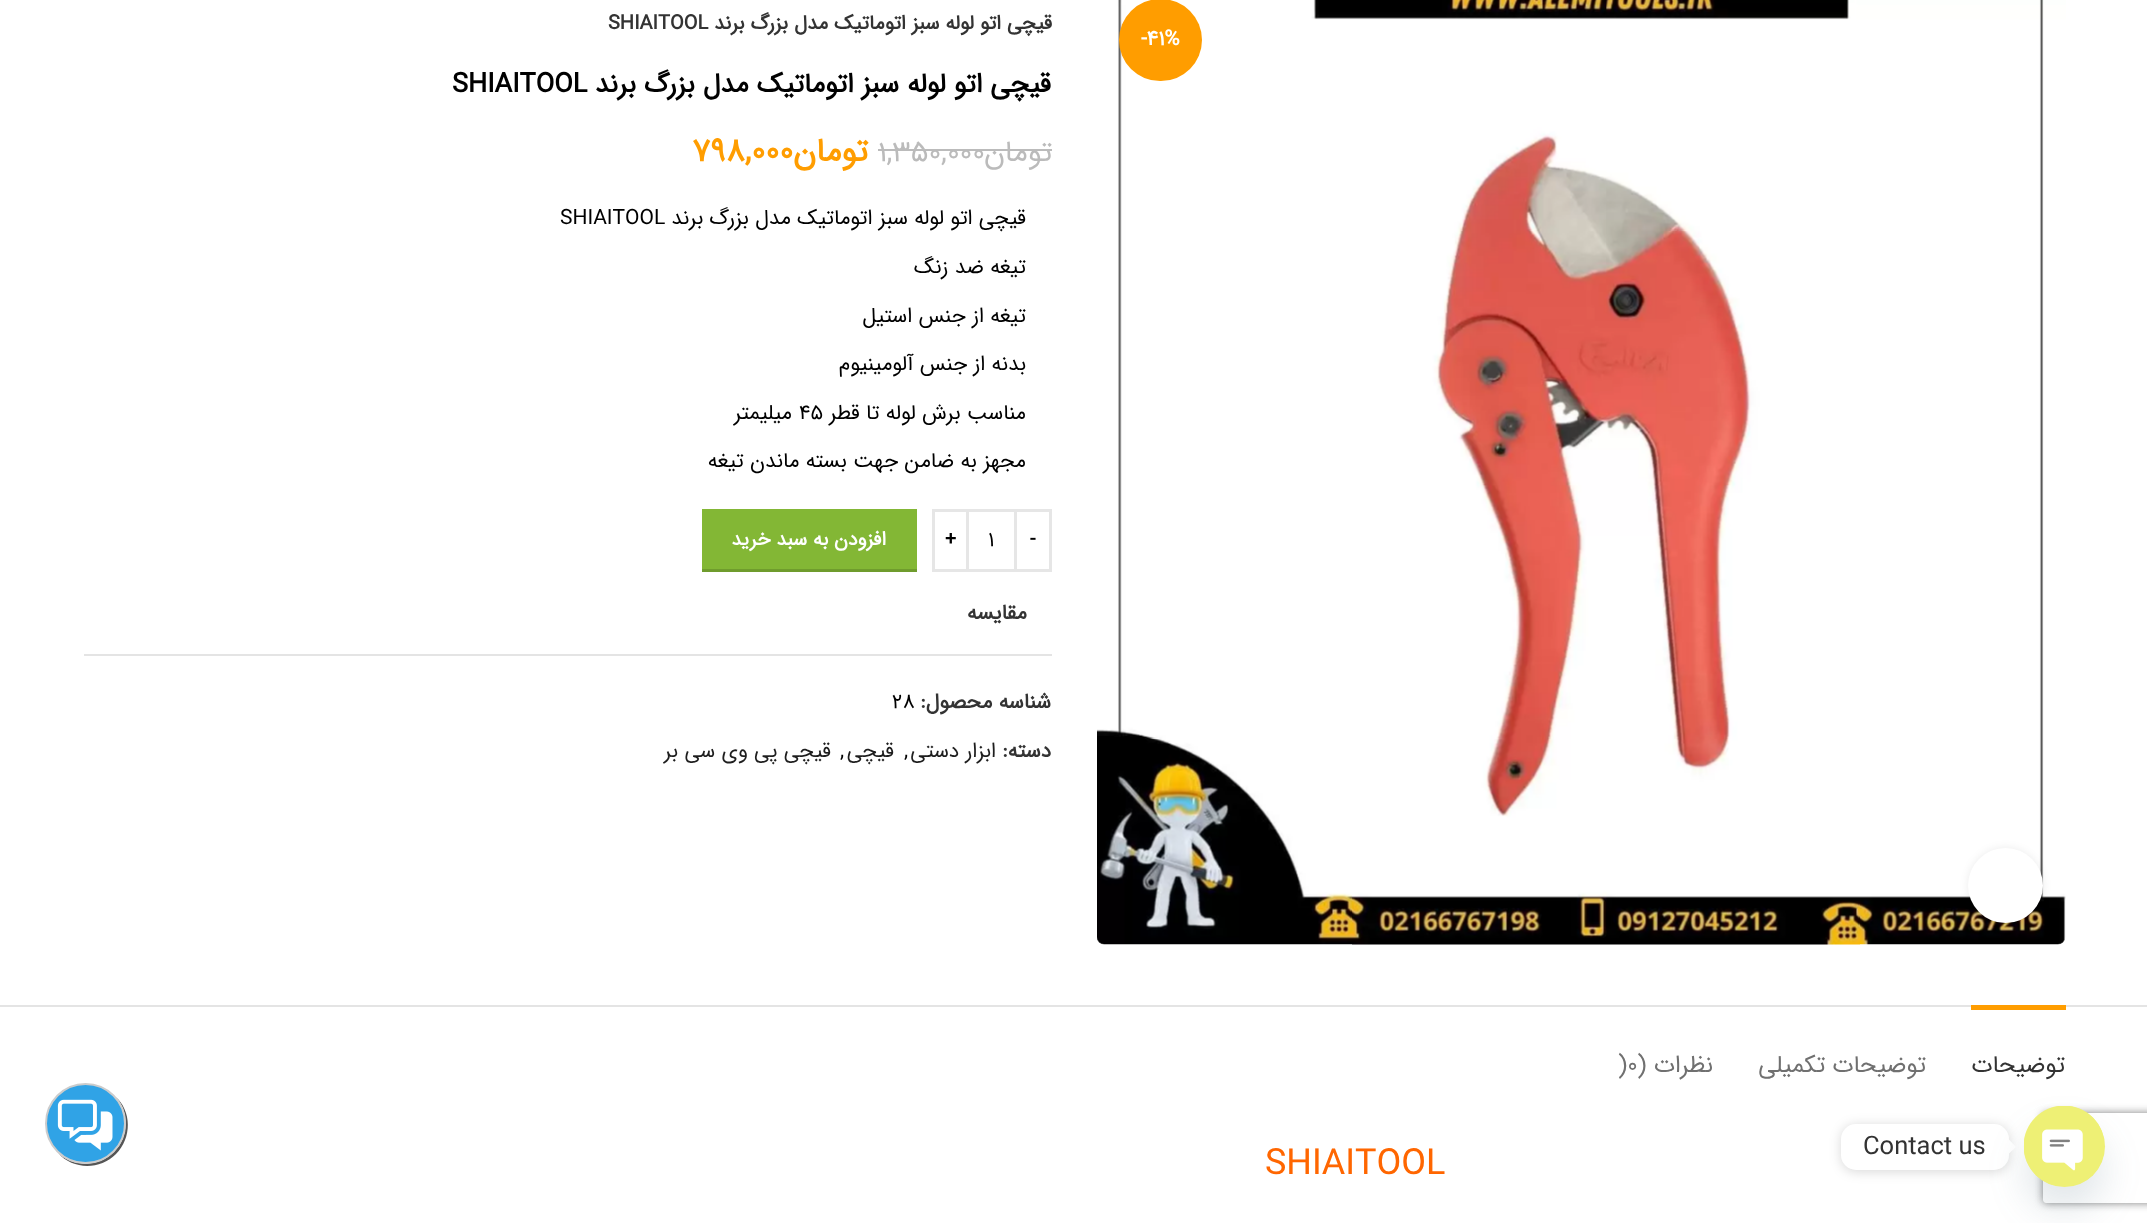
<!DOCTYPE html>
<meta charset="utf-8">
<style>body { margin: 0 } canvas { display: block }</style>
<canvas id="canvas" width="2147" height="1223"></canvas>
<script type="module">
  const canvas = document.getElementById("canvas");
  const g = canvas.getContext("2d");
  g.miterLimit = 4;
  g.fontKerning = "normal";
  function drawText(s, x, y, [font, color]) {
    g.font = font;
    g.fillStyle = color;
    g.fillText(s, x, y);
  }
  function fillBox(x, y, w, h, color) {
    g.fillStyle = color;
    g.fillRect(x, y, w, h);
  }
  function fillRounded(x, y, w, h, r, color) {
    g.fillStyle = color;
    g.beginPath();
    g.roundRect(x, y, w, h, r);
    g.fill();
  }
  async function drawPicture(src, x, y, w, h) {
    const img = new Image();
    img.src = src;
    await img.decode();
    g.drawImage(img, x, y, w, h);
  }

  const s1 = ["bold 21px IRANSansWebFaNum", "#FFFFFF"];
  const s2 = ["bold 20px IRANSansWebFaNum", "#333333"];
  const s3 = ["bold 27px IRANSansWebFaNum", "#000000"];
  const s4 = ["29.5px IRANSansWebFaNum", "#BBBBBB"];
  const s5 = ["bold 32.5px IRANSansWebFaNum", "#FF9D00"];
  const s6 = ["21px IRANSansWebFaNum", "#000000"];
  const s7 = ["bold 19.5px IRANSansWebFaNum", "#000000"];
  const s8 = ["bold 19.5px IRANSansWebFaNum", "#FFFFFF"];
  const s9 = ["bold 21px IRANSansWebFaNum", "#333333"];
  const s10 = ["21px IRANSansWebFaNum", "#1E1E1E"];
  const s11 = ["24px IRANSansWebFaNum", "#333333"];
  const s12 = ["24px IRANSansWebFaNum", "#707070"];
  const s13 = ["36px IRANSansWebFaNum", "#FF6600"];
  const s14 = ["25.5px Roboto", "#333333"];

  fillBox(0, 0, 2147, 1223, "#FFFFFF");
  g.save();
  g.beginPath();
  g.moveTo(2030, 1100);
  g.lineTo(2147, 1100);
  g.lineTo(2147, 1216);
  g.lineTo(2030, 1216);
  g.closePath();
  g.moveTo(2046, 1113);
  g.lineTo(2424, 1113);
  g.bezierCurveTo(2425.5, 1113, 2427, 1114.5, 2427, 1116);
  g.lineTo(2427, 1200);
  g.bezierCurveTo(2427, 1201.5, 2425.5, 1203, 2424, 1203);
  g.lineTo(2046, 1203);
  g.bezierCurveTo(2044.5, 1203, 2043, 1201.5, 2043, 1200);
  g.lineTo(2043, 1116);
  g.bezierCurveTo(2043, 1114.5, 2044.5, 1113, 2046, 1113);
  g.closePath();
  g.clip("evenodd");
  g.fillStyle = "#808080";
  g.filter = "blur(4px)";
  g.beginPath();
  g.roundRect(2043, 1113, 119, 90, 3);
  g.fill();
  g.filter = "none";
  g.restore();
  await drawPicture("pic1.png", 1097, 0, 969, 945);
  fillRounded(1119, -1, 83, 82, 41, "#FF9D00");
  drawText("-41%", 1141, 45, s1);
  g.fillStyle = "rgba(0, 0, 0, 0.08)";
  g.filter = "blur(4px)";
  g.beginPath();
  g.roundRect(1968, 848, 75, 75, 37.5);
  g.fill();
  g.filter = "none";
  g.fillStyle = "#FFFFFF";
  g.beginPath();
  g.arc(2005.5, 885.5, 37.5, 0, Math.PI * 2);
  g.fill();
  g.direction = "rtl";
  drawText("قیچی اتو لوله سبز اتوماتیک مدل بزرگ برند", 1052, 29, s2);
  g.direction = "ltr";
  drawText("SHIAITOOL", 608, 29, s2);
  g.direction = "rtl";
  drawText("قیچی اتو لوله سبز اتوماتیک مدل بزرگ برند", 1051, 92, s3);
  g.direction = "ltr";
  drawText("SHIAITOOL", 452, 92, s3);
  g.direction = "rtl";
  drawText("تومان", 1052, 161, s4);
  g.direction = "ltr";
  drawText("1,350,000", 878, 161, s4);
  fillBox(984, 149, 68, 2, "#BBBBBB");
  fillBox(878, 149, 106, 2, "#BBBBBB");
  g.direction = "rtl";
  drawText("تومان", 868, 161, s5);
  g.direction = "ltr";
  drawText("798,000", 692, 161, s5);
  g.direction = "rtl";
  drawText("قیچی اتو لوله سبز اتوماتیک مدل بزرگ برند", 1026, 224, s6);
  g.direction = "ltr";
  drawText("SHIAITOOL", 560, 224, s6);
  g.direction = "rtl";
  drawText("تیغه ضد زنگ", 1026, 273, s6);
  drawText("تیغه از جنس استیل", 1026, 322, s6);
  drawText("بدنه از جنس آلومینیوم", 1026, 370, s6);
  drawText("مناسب برش لوله تا قطر", 1026, 419, s6);
  g.direction = "ltr";
  drawText("45", 799, 419, s6);
  g.direction = "rtl";
  drawText("میلیمتر", 792, 419, s6);
  drawText("مجهز به ضامن جهت بسته ماندن تیغه", 1026, 467, s6);
  g.strokeStyle = "#E6E6E6";
  g.lineWidth = 3;
  g.strokeRect(1015.5, 510.5, 35, 60);
  g.direction = "ltr";
  drawText("-", 1030, 545, s7);
  fillBox(969, 509, 45, 3, "#E6E6E6");
  fillBox(969, 569, 45, 3, "#E6E6E6");
  drawText("1", 988, 546, s6);
  g.strokeRect(933.5, 510.5, 34, 60);
  drawText("+", 945, 545, s7);
  fillBox(702, 509, 215, 60, "#83B735");
  fillBox(702, 569, 215, 3, "#6F9C2D");
  g.direction = "rtl";
  drawText("افزودن به سبد خرید", 886, 545, s8);
  drawText("مقایسه", 1027, 619, s9);
  fillBox(84, 654, 968, 2, "#E4E4E4");
  drawText("شناسه محصول:", 1051, 708, s9);
  g.direction = "ltr";
  drawText("28", 892, 708, s6);
  g.direction = "rtl";
  drawText("دسته:", 1051, 757, s9);
  drawText("ابزار دستی", 996, 757, s10);
  g.direction = "ltr";
  drawText(",", 904, 757, s6);
  g.direction = "rtl";
  drawText("قیچی", 894, 757, s10);
  g.direction = "ltr";
  drawText(",", 840, 757, s6);
  g.direction = "rtl";
  drawText("قیچی پی وی سی بر", 831, 757, s10);
  fillBox(0, 1005, 2147, 2, "#E4E4E4");
  fillBox(1971, 1005, 95, 5, "#FF9D00");
  drawText("توضیحات", 2065, 1072, s11);
  drawText("توضیحات تکمیلی", 1926, 1072, s12);
  drawText("نظرات (", 1713, 1072, s12);
  g.direction = "ltr";
  drawText(")0", 1618, 1072, s12);
  drawText("SHIAITOOL", 1265, 1174, s13);
  g.fillStyle = "#555555";
  g.beginPath();
  g.moveTo(58, 1153);
  g.bezierCurveTo(73, 1170, 100, 1170, 116, 1154);
  g.bezierCurveTo(132, 1138, 132, 1111, 115, 1096);
  g.bezierCurveTo(130, 1112, 129, 1137, 114, 1152);
  g.bezierCurveTo(99, 1167, 74, 1168, 58, 1153);
  g.closePath();
  g.fill();
  g.fillStyle = "#30A3E6";
  g.beginPath();
  g.arc(85.5, 1123.5, 39.5, 0, Math.PI * 2);
  g.fill();
  g.strokeStyle = "#CCCCCC";
  g.lineWidth = 2;
  g.stroke();
  await drawPicture("pic2.png", 57, 1099, 56, 52);
  g.fillStyle = "rgba(0, 0, 0, 0.15)";
  g.filter = "blur(6px)";
  g.beginPath();
  g.roundRect(1841, 1125, 168, 47, 15);
  g.fill();
  g.filter = "none";
  fillRounded(1841, 1124, 168, 46, 15, "#FFFFFF");
  g.beginPath();
  g.moveTo(2008.5, 1154);
  g.lineTo(2008.5, 1139);
  g.lineTo(2016, 1147);
  g.closePath();
  g.fill();
  g.fillStyle = "rgba(73, 104, 126, 0.16)";
  g.filter = "blur(18px)";
  g.beginPath();
  g.roundRect(2024, 1130, 81, 81, 40.5);
  g.fill();
  g.filter = "none";
  g.fillStyle = "#EEF075";
  g.beginPath();
  g.arc(2064.5, 1146.5, 40.5, 0, Math.PI * 2);
  g.fill();
  await drawPicture("pic3.png", 2024, 1106, 80, 79);
  drawText("Contact us", 1863, 1154, s14);
</script>
